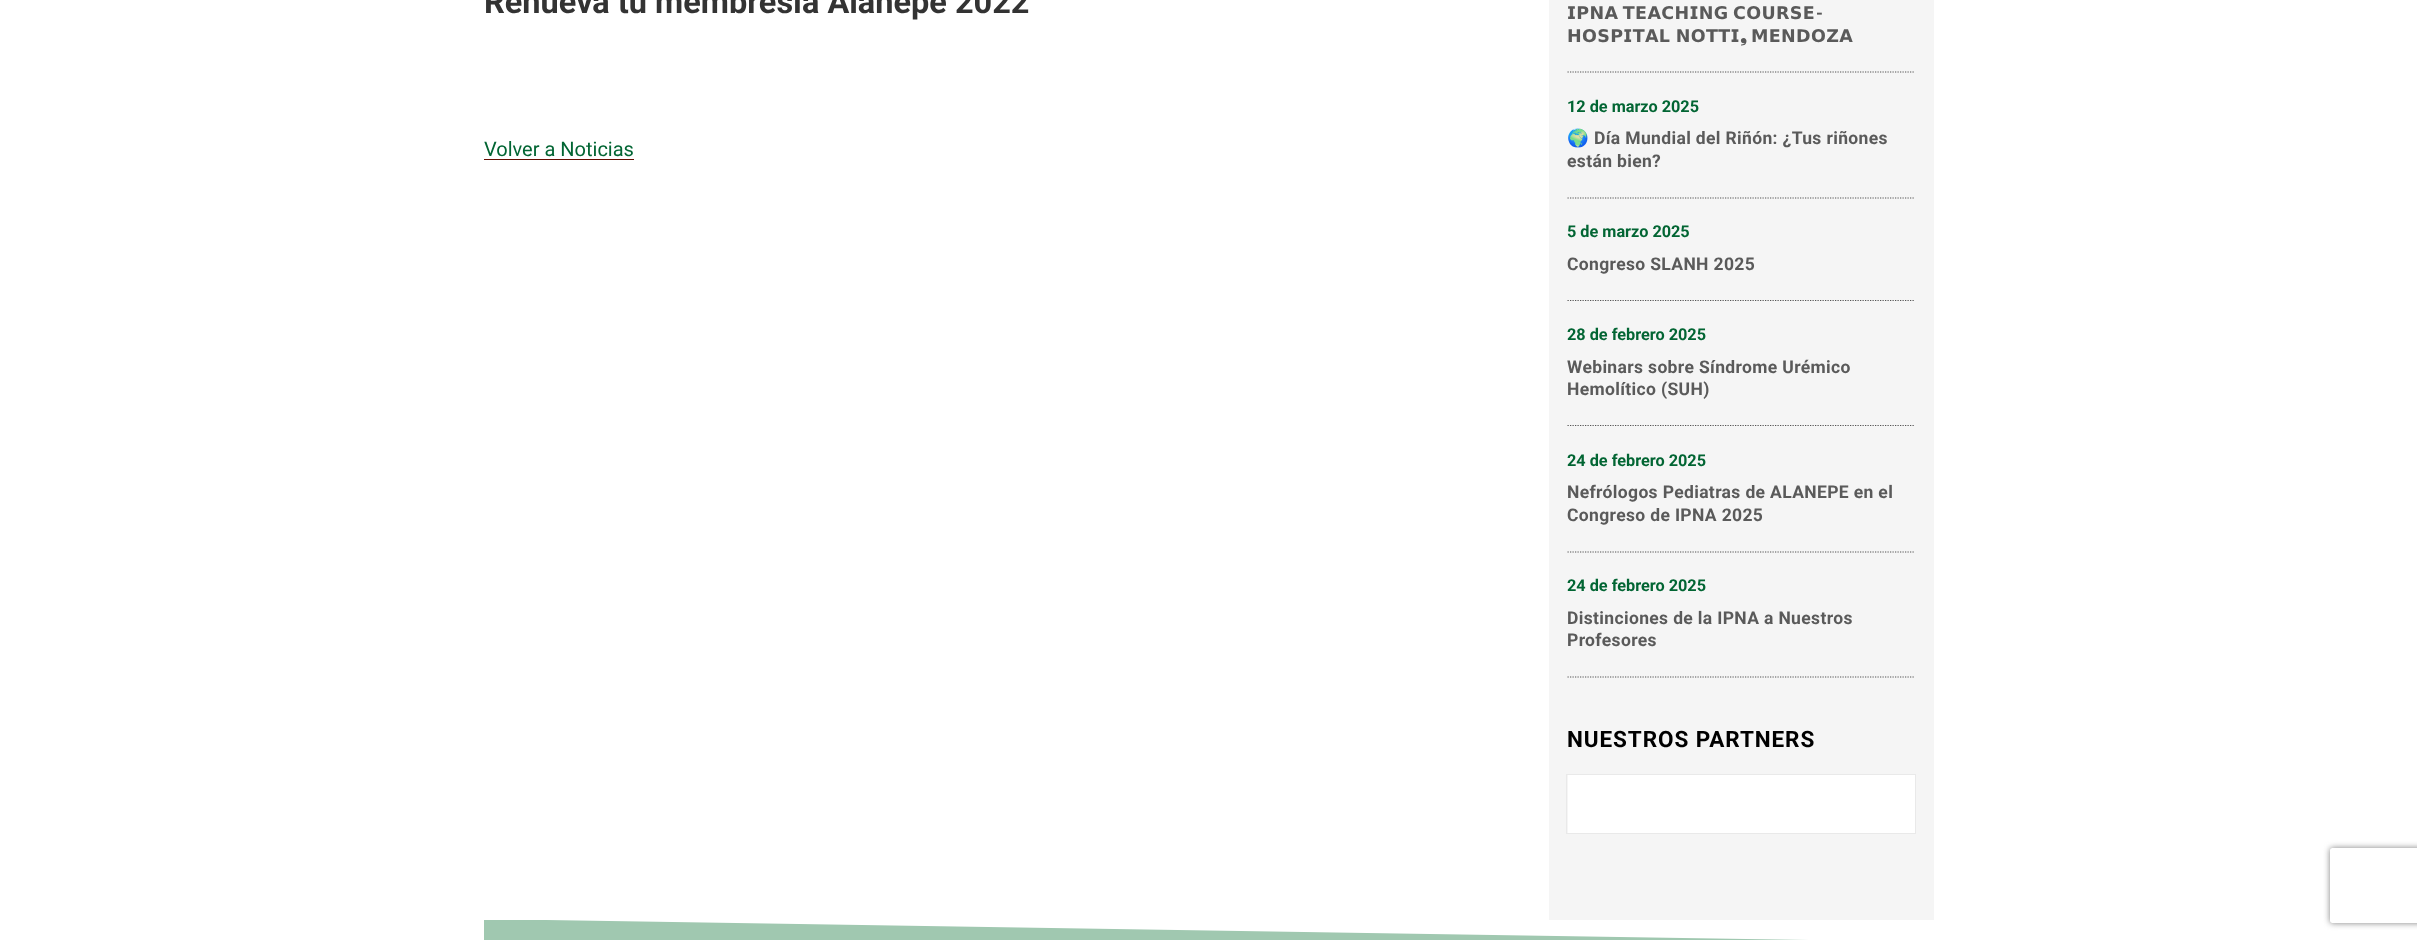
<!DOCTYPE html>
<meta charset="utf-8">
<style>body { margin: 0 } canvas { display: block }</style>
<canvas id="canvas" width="2417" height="940"></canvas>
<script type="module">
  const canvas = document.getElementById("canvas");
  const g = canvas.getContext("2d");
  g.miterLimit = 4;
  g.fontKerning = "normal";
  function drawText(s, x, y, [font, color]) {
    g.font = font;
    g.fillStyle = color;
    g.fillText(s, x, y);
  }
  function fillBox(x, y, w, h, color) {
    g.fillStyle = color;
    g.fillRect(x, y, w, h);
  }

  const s1 = ["bold 32.5px Roboto", "#333333"];
  const s2 = ["20px Roboto", "#026533"];
  const s3 = ["bold 17.5px DejaVu Sans", "#5A5A5A"];
  const s4 = ["bold 17.5px Roboto", "#5A5A5A"];
  const s5 = ["bold 17.5px FreeSans", "#5A5A5A"];
  const s6 = ["bold 16.25px Roboto", "#026533"];
  const s7 = ["bold 17.5px Noto Color Emoji", "#5A5A5A"];
  const s8 = ["bold 22.5px Roboto", "#000000"];

  fillBox(0, 0, 2417, 940, "#FFFFFF");
  drawText("Renueva tu membresía Alanepe 2022", 484, 13, s1);
  fillBox(484, 159, 150, 1, "#650D02");
  drawText("Volver a Noticias", 484, 156, s2);
  fillBox(1549, 0, 385, 920, "#F5F5F5");
  g.beginPath();
  g.moveTo(1567.5, 72);
  g.lineTo(1915, 72);
  g.strokeStyle = "#555555";
  g.lineWidth = 1.2;
  g.setLineDash([1.25, 1.25]);
  g.stroke();
  g.letterSpacing = "0.35px";
  g.wordSpacing = "-2px";
  drawText("𝗜𝗣𝗡𝗔 𝗧𝗘𝗔𝗖𝗛𝗜𝗡𝗚 𝗖𝗢𝗨𝗥𝗦𝗘", 1567, 19, s3);
  g.wordSpacing = "0px";
  drawText("-", 1816, 19, s4);
  g.wordSpacing = "-1px";
  drawText("𝗛𝗢𝗦𝗣𝗜𝗧𝗔𝗟 𝗡𝗢𝗧𝗧𝗜", 1567, 42, s3);
  g.wordSpacing = "0px";
  drawText("❟", 1740, 42, s5);
  drawText("𝗠𝗘𝗡𝗗𝗢𝗭𝗔", 1751, 42, s3);
  g.beginPath();
  g.moveTo(1567.5, 198);
  g.lineTo(1915, 198);
  g.stroke();
  g.letterSpacing = "0px";
  drawText("12 de marzo 2025", 1567, 112, s6);
  g.letterSpacing = "0.35px";
  drawText("🌍", 1567, 144, s7);
  drawText("Día Mundial del Riñón: ¿Tus riñones", 1594, 144, s4);
  drawText("están bien?", 1567, 167, s4);
  g.beginPath();
  g.moveTo(1567.5, 300.5);
  g.lineTo(1915, 300.5);
  g.stroke();
  g.letterSpacing = "0px";
  drawText("5 de marzo 2025", 1567, 237, s6);
  g.letterSpacing = "0.35px";
  drawText("Congreso SLANH 2025", 1567, 270, s4);
  g.beginPath();
  g.moveTo(1567.5, 425.5);
  g.lineTo(1915, 425.5);
  g.stroke();
  g.letterSpacing = "0px";
  drawText("28 de febrero 2025", 1567, 340, s6);
  g.letterSpacing = "0.35px";
  drawText("Webinars sobre Síndrome Urémico", 1567, 373, s4);
  drawText("Hemolítico (SUH)", 1567, 395, s4);
  g.beginPath();
  g.moveTo(1567.5, 552);
  g.lineTo(1915, 552);
  g.stroke();
  g.letterSpacing = "0px";
  drawText("24 de febrero 2025", 1567, 466, s6);
  g.letterSpacing = "0.35px";
  drawText("Nefrólogos Pediatras de ALANEPE en el", 1567, 498, s4);
  drawText("Congreso de IPNA 2025", 1567, 521, s4);
  g.beginPath();
  g.moveTo(1567.5, 677);
  g.lineTo(1915, 677);
  g.stroke();
  g.letterSpacing = "0px";
  drawText("24 de febrero 2025", 1567, 591, s6);
  g.letterSpacing = "0.35px";
  drawText("Distinciones de la IPNA a Nuestros", 1567, 624, s4);
  drawText("Profesores", 1567, 646, s4);
  g.letterSpacing = "0.9px";
  drawText("NUESTROS PARTNERS", 1567, 747, s8);
  fillBox(1568, 775, 347, 58, "#FFFFFF");
  g.strokeStyle = "#E9E9E9";
  g.lineWidth = 1;
  g.setLineDash([]);
  g.strokeRect(1566.5, 774.5, 349, 59);
  fillBox(484, 920, 1325, 20, "#80B696");
  g.save();
  g.beginPath();
  g.rect(484, 920, 1450, 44);
  g.clip();
  g.fillStyle = "#FFFFFF";
  g.beginPath();
  g.moveTo(483, 919);
  g.lineTo(1935, 919);
  g.lineTo(1935, 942);
  g.closePath();
  g.fill();
  g.fillStyle = "rgba(255, 255, 255, 0.25)";
  g.beginPath();
  g.moveTo(1935, 919);
  g.lineTo(483, 919);
  g.lineTo(483, 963);
  g.lineTo(1935, 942);
  g.closePath();
  g.fill();
  g.restore();
  g.save();
  g.beginPath();
  g.moveTo(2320, 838);
  g.lineTo(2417, 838);
  g.lineTo(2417, 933);
  g.lineTo(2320, 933);
  g.closePath();
  g.moveTo(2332.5, 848);
  g.lineTo(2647.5, 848);
  g.bezierCurveTo(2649, 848, 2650, 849, 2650, 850.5);
  g.lineTo(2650, 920.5);
  g.bezierCurveTo(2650, 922, 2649, 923, 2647.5, 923);
  g.lineTo(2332.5, 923);
  g.bezierCurveTo(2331, 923, 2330, 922, 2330, 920.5);
  g.lineTo(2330, 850.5);
  g.bezierCurveTo(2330, 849, 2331, 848, 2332.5, 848);
  g.closePath();
  g.clip("evenodd");
  g.fillStyle = "#808080";
  g.filter = "blur(3px)";
  g.beginPath();
  g.roundRect(2330, 848, 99, 75, 2.5);
  g.fill();
  g.filter = "none";
  g.restore();
</script>
